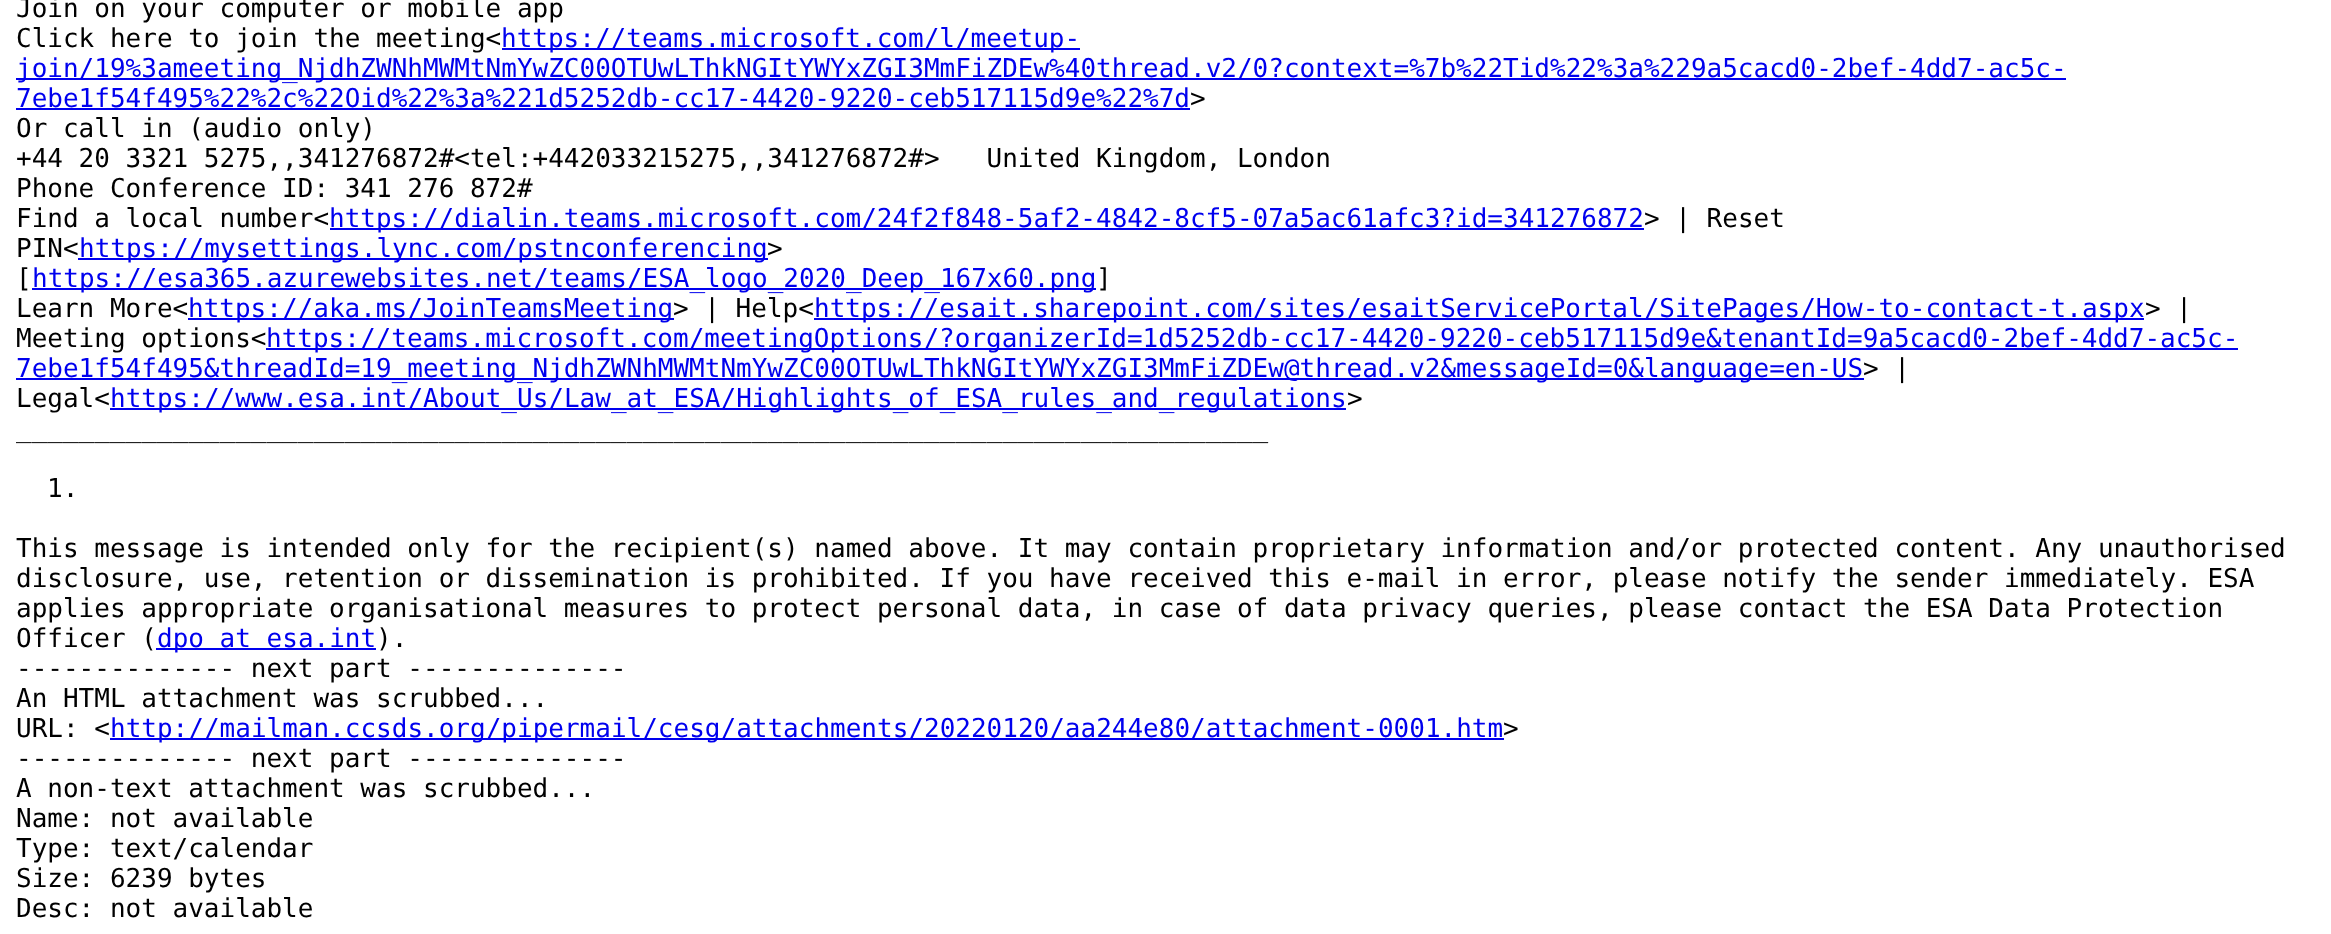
<!DOCTYPE html>
<meta charset="utf-8">
<style>body { margin: 0 } canvas { display: block }</style>
<canvas id="canvas" width="2331" height="934"></canvas>
<script type="module">
  const canvas = document.getElementById("canvas");
  const g = canvas.getContext("2d");
  g.miterLimit = 4;
  g.fontKerning = "normal";
  function drawText(s, x, y, [font, color]) {
    g.font = font;
    g.fillStyle = color;
    g.fillText(s, x, y);
  }
  function fillBox(x, y, w, h, color) {
    g.fillStyle = color;
    g.fillRect(x, y, w, h);
  }

  const s1 = ["26px DejaVu Sans Mono", "#000000"];
  const s2 = ["26px DejaVu Sans Mono", "#0000EE"];

  fillBox(0, 0, 2331, 934, "#FFFFFF");
  drawText("Join on your computer or mobile app", 16, 17, s1);
  drawText("Click here to join the meeting<", 16, 47, s1);
  fillBox(502, 48, 578, 2, "#0000EE");
  drawText("https://teams.microsoft.com/l/meetup-", 501, 47, s2);
  fillBox(16, 78, 2050, 2, "#0000EE");
  drawText("join/19%3ameeting_NjdhZWNhMWMtNmYwZC00OTUwLThkNGItYWYxZGI3MmFiZDEw%40thread.v2/0?context=%7b%22Tid%22%3a%229a5cacd0-2bef-4dd7-ac5c-", 16, 77, s2);
  drawText("7ebe1f54f495%22%2c%22Oid%22%3a%221d5252db-cc17-4420-9220-ceb517115d9e%22%7d", 16, 107, s2);
  fillBox(16, 108, 1174, 2, "#0000EE");
  drawText(">", 1190, 107, s1);
  drawText("Or call in (audio only)", 16, 137, s1);
  drawText("+44 20 3321 5275,,341276872#<tel:+442033215275,,341276872#>   United Kingdom, London", 16, 167, s1);
  drawText("Phone Conference ID: 341 276 872#", 16, 197, s1);
  drawText("Find a local number<", 16, 227, s1);
  fillBox(330, 228, 1314, 2, "#0000EE");
  drawText("https://dialin.teams.microsoft.com/24f2f848-5af2-4842-8cf5-07a5ac61afc3?id=341276872", 329, 227, s2);
  drawText("> | Reset", 1644, 227, s1);
  drawText("PIN<", 16, 257, s1);
  fillBox(78, 258, 690, 2, "#0000EE");
  drawText("https://mysettings.lync.com/pstnconferencing", 79, 257, s2);
  drawText(">", 767, 257, s1);
  drawText("[", 16, 287, s1);
  fillBox(32, 288, 1064, 2, "#0000EE");
  drawText("https://esa365.azurewebsites.net/teams/ESA_logo_2020_Deep_167x60.png", 32, 287, s2);
  drawText("]", 1096, 287, s1);
  drawText("Learn More<", 16, 317, s1);
  fillBox(188, 318, 486, 2, "#0000EE");
  drawText("https://aka.ms/JoinTeamsMeeting", 188, 317, s2);
  drawText("> | Help<", 673, 317, s1);
  fillBox(814, 318, 1330, 2, "#0000EE");
  drawText("https://esait.sharepoint.com/sites/esaitServicePortal/SitePages/How-to-contact-t.aspx", 814, 317, s2);
  drawText("> |", 2145, 317, s1);
  drawText("Meeting options<", 16, 347, s1);
  fillBox(266, 348, 1972, 2, "#0000EE");
  drawText("https://teams.microsoft.com/meetingOptions/?organizerId=1d5252db-cc17-4420-9220-ceb517115d9e&tenantId=9a5cacd0-2bef-4dd7-ac5c-", 266, 347, s2);
  fillBox(16, 378, 1848, 2, "#0000EE");
  drawText("7ebe1f54f495&threadId=19_meeting_NjdhZWNhMWMtNmYwZC00OTUwLThkNGItYWYxZGI3MmFiZDEw@thread.v2&messageId=0&language=en-US", 16, 377, s2);
  drawText("> |", 1863, 377, s1);
  drawText("Legal<", 16, 407, s1);
  fillBox(110, 408, 1236, 2, "#0000EE");
  drawText("https://www.esa.int/About_Us/Law_at_ESA/Highlights_of_ESA_rules_and_regulations", 110, 407, s2);
  drawText(">", 1347, 407, s1);
  drawText("________________________________________________________________________________", 16, 437, s1);
  drawText("1.", 47, 497, s1);
  drawText("This message is intended only for the recipient(s) named above. It may contain proprietary information and/or protected content. Any unauthorised", 16, 557, s1);
  drawText("disclosure, use, retention or dissemination is prohibited. If you have received this e-mail in error, please notify the sender immediately. ESA", 16, 587, s1);
  drawText("applies appropriate organisational measures to protect personal data, in case of data privacy queries, please contact the ESA Data Protection", 16, 617, s1);
  drawText("Officer (", 16, 647, s1);
  fillBox(156, 648, 220, 2, "#0000EE");
  drawText("dpo at esa.int", 157, 647, s2);
  drawText(").", 376, 647, s1);
  drawText("-------------- next part --------------", 16, 677, s1);
  drawText("An HTML attachment was scrubbed...", 16, 707, s1);
  drawText("URL: <", 16, 737, s1);
  fillBox(110, 738, 1394, 2, "#0000EE");
  drawText("http://mailman.ccsds.org/pipermail/cesg/attachments/20220120/aa244e80/attachment-0001.htm", 110, 737, s2);
  drawText(">", 1503, 737, s1);
  drawText("-------------- next part --------------", 16, 767, s1);
  drawText("A non-text attachment was scrubbed...", 16, 797, s1);
  drawText("Name: not available", 16, 827, s1);
  drawText("Type: text/calendar", 16, 857, s1);
  drawText("Size: 6239 bytes", 16, 887, s1);
  drawText("Desc: not available", 16, 917, s1);
</script>
